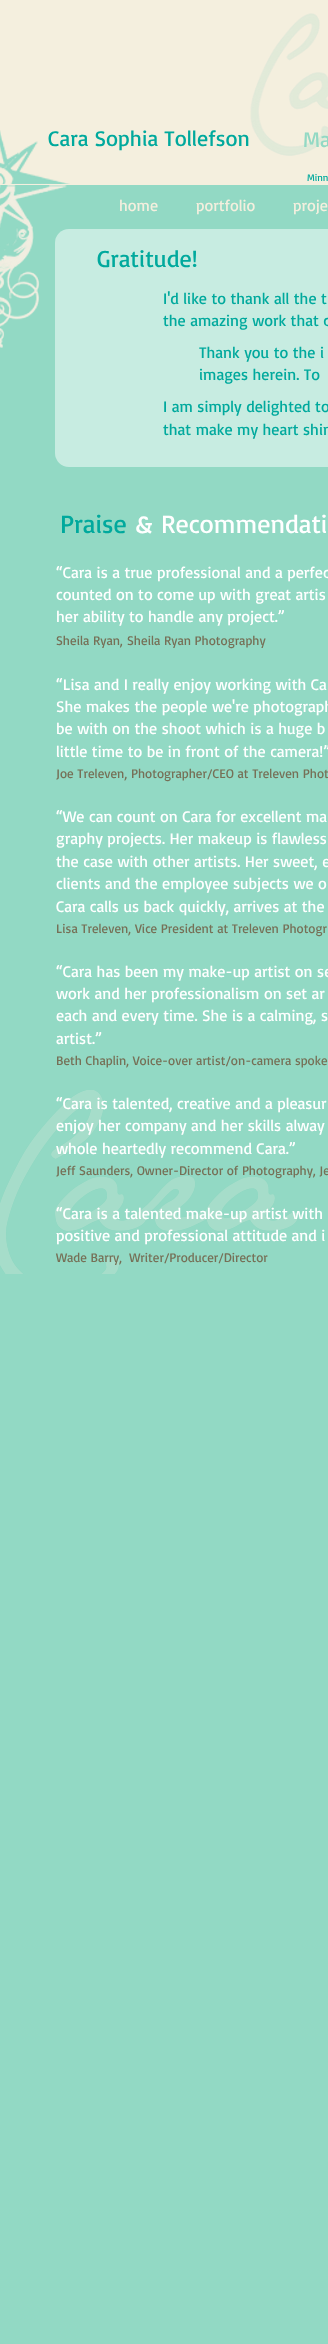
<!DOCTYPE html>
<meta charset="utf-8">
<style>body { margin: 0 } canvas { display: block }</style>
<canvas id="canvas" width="328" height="2344"></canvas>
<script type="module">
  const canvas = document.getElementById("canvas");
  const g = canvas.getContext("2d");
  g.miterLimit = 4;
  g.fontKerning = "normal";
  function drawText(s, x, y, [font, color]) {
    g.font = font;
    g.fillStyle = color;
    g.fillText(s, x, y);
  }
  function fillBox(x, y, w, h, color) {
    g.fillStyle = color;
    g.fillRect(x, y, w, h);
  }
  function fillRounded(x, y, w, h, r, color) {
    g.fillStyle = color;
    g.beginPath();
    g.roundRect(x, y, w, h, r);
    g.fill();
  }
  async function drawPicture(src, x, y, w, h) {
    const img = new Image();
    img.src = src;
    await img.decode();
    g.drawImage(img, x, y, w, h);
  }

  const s1 = ["22px Basic", "#00A99D"];
  const s2 = ["22px Basic", "#92D9C4"];
  const s3 = ["10px Basic", "#00A99D"];
  const s4 = ["16px Basic", "#F4EFDE"];
  const s5 = ["24px Basic", "#00A99D"];
  const s6 = ["16px Basic", "#00A99D"];
  const s7 = ["26px Basic", "#00A99D"];
  const s8 = ["26px Basic", "#FFFFFF"];
  const s9 = ["16px Basic", "#FFFFFF"];
  const s10 = ["13px Basic", "#767057"];

  fillBox(0, 0, 328, 2344, "#92D9C4");
  fillBox(0, 0, 328, 185, "#F4EFDE");
  drawText("Cara Sophia Tollefson", 48, 146, s1);
  await drawPicture("pic1.png", 0, 130, 70, 54);
  await drawPicture("pic2.png", 250, 13, 78, 143);
  drawText("Ma", 303, 147, s2);
  drawText("Minn", 307, 181, s3);
  await drawPicture("pic3.png", 0, 185, 67, 163);
  drawText("home", 119, 211, s4);
  drawText("portfolio", 196, 211, s4);
  drawText("proje", 293, 211, s4);
  fillRounded(55, 229, 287, 238, 14, "#C7ECE1");
  drawText("Gratitude!", 97, 267, s5);
  drawText("I'd like to thank all the t", 163, 304, s6);
  drawText("the amazing work that c", 163, 326, s6);
  drawText("Thank you to the i", 199, 358, s6);
  drawText("images herein. To", 199, 380, s6);
  drawText("I am simply delighted to", 163, 412, s6);
  drawText("that make my heart shin", 163, 435, s6);
  drawText("Praise", 60, 533, s7);
  drawText("&", 136, 533, s8);
  drawText("Recommendati", 161, 533, s8);
  drawText("“Cara is a true professional and a perfec", 56, 578, s9);
  drawText("counted on to come up with great artis", 56, 600, s9);
  drawText("her ability to handle any project.”", 56, 622, s9);
  drawText("Sheila Ryan,", 56, 645, s10);
  drawText("Sheila Ryan Photography", 127, 645, s10);
  drawText("“Lisa and I really enjoy working with Ca", 56, 690, s9);
  drawText("She makes the people we're photograph", 56, 712, s9);
  drawText("be with on the shoot which is a huge b", 56, 734, s9);
  drawText("little time to be in front of the camera!”", 56, 757, s9);
  drawText("Joe Treleven,", 56, 778, s10);
  drawText("Photographer/CEO at Treleven Phot", 131, 778, s10);
  drawText("“We can count on Cara for excellent ma", 56, 822, s9);
  drawText("graphy projects. Her makeup is flawless", 56, 844, s9);
  drawText("the case with other artists. Her sweet, e", 56, 867, s9);
  drawText("clients and the employee subjects we o", 56, 889, s9);
  drawText("Cara calls us back quickly, arrives at the", 56, 912, s9);
  drawText("Lisa Treleven,", 56, 933, s10);
  drawText("Vice President at Treleven Photogr", 135, 933, s10);
  drawText("“Cara has been my make-up artist on se", 56, 977, s9);
  drawText("work and her professionalism on set ar", 56, 999, s9);
  drawText("each and every time. She is a calming, s", 56, 1021, s9);
  drawText("artist.”", 56, 1044, s9);
  drawText("Beth Chaplin, Voice-over artist/on-camera spoke", 56, 1065, s10);
  await drawPicture("pic4.png", 0, 1090, 298, 184);
  drawText("“Cara is talented, creative and a pleasur", 56, 1109, s9);
  drawText("enjoy her company and her skills alway", 56, 1131, s9);
  drawText("whole heartedly recommend Cara.”", 56, 1154, s9);
  drawText("Jeff Saunders, Owner-Director of Photography, Je", 56, 1175, s10);
  drawText("“Cara is a talented make-up artist with", 56, 1219, s9);
  drawText("positive and professional attitude and i", 56, 1241, s9);
  drawText("Wade Barry,  Writer/Producer/Director", 56, 1262, s10);
</script>
